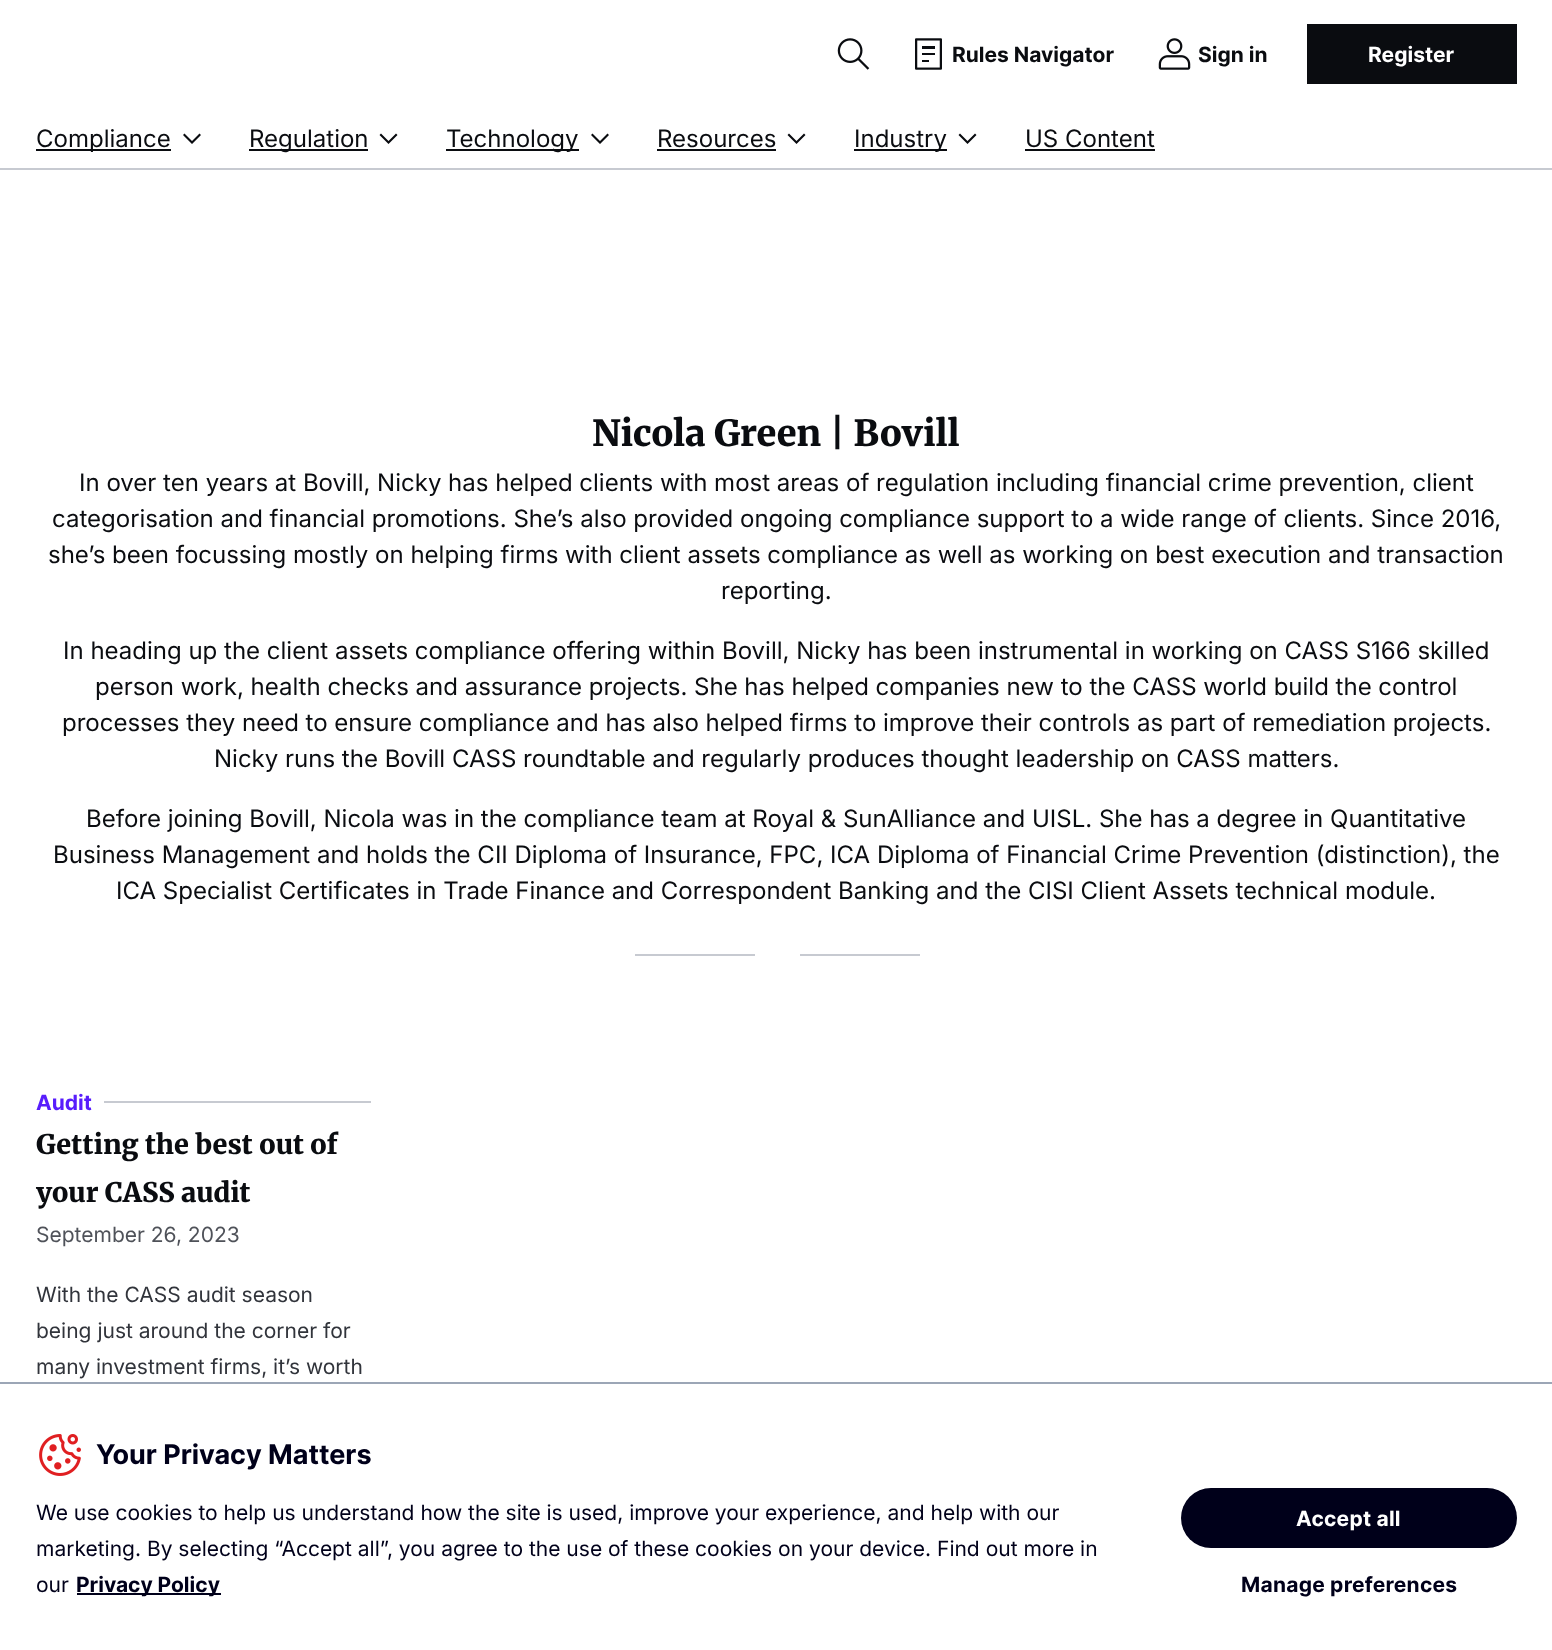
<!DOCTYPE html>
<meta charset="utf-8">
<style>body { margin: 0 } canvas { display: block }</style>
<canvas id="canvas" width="1552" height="1650"></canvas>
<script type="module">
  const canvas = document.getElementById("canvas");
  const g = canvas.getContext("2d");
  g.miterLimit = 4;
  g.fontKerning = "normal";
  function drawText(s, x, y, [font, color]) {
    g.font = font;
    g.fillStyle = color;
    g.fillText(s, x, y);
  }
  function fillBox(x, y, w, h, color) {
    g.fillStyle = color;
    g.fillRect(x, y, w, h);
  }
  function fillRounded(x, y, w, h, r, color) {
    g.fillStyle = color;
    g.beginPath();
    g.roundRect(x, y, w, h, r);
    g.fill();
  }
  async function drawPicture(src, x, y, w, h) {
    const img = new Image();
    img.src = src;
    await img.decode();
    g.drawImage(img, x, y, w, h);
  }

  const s1 = ["bold 21px Inter", "#0A0C10"];
  const s2 = ["bold 21px Inter", "#FFFFFF"];
  const s3 = ["24px Inter", "#0A0C10"];
  const s4 = ["900 36px Merriweather", "#0A0C10"];
  const s5 = ["bold 21px Inter", "#581DFC"];
  const s6 = ["900 27px Merriweather", "#0A0C10"];
  const s7 = ["21px Inter", "#4F5259"];
  const s8 = ["21px Inter", "#31343B"];
  const s9 = ["bold 27px Inter", "#00001A"];
  const s10 = ["21px Inter", "#00001A"];
  const s11 = ["bold 21px Inter", "#00001A"];

  fillBox(0, 0, 1552, 1650, "#FFFFFF");
  fillBox(0, 168, 1552, 2, "#C7CAD1");
  await drawPicture("pic1.png", 837, 38, 33, 32);
  await drawPicture("pic2.png", 915, 38, 27, 32);
  drawText("Rules Navigator", 952, 62, s1);
  await drawPicture("pic3.png", 1158, 38, 33, 32);
  drawText("Sign in", 1198, 62, s1);
  fillBox(1307, 24, 210, 60, "#0A0C10");
  drawText("Register", 1368, 62, s2);
  fillBox(36, 149, 135, 2, "#0A0C10");
  drawText("Compliance", 36, 147, s3);
  g.beginPath();
  g.moveTo(192, 141);
  g.lineTo(199.5, 133.5);
  g.lineTo(201, 135);
  g.lineTo(192, 144);
  g.lineTo(183, 135);
  g.lineTo(184.5, 133.5);
  g.closePath();
  g.fill("evenodd");
  fillBox(249, 149, 119, 2, "#0A0C10");
  drawText("Regulation", 249, 147, s3);
  g.beginPath();
  g.moveTo(388.5, 141);
  g.lineTo(396, 133.5);
  g.lineTo(397.5, 135);
  g.lineTo(388.5, 144);
  g.lineTo(379.5, 135);
  g.lineTo(381, 133.5);
  g.closePath();
  g.fill("evenodd");
  fillBox(446, 149, 133, 2, "#0A0C10");
  drawText("Technology", 446, 147, s3);
  g.beginPath();
  g.moveTo(600, 141);
  g.lineTo(607.5, 133.5);
  g.lineTo(609, 135);
  g.lineTo(600, 144);
  g.lineTo(591, 135);
  g.lineTo(592.5, 133.5);
  g.closePath();
  g.fill("evenodd");
  drawText("Resources", 657, 147, s3);
  fillBox(657, 149, 119, 2, "#0A0C10");
  g.beginPath();
  g.moveTo(796.5, 141);
  g.lineTo(804, 133.5);
  g.lineTo(805.5, 135);
  g.lineTo(796.5, 144);
  g.lineTo(787.5, 135);
  g.lineTo(789, 133.5);
  g.closePath();
  g.fill("evenodd");
  fillBox(854, 149, 93, 2, "#0A0C10");
  drawText("Industry", 854, 147, s3);
  g.beginPath();
  g.moveTo(967.5, 141);
  g.lineTo(975, 133.5);
  g.lineTo(976.5, 135);
  g.lineTo(967.5, 144);
  g.lineTo(958.5, 135);
  g.lineTo(960, 133.5);
  g.closePath();
  g.fill("evenodd");
  drawText("US Content", 1025, 147, s3);
  fillBox(1025, 149, 130, 2, "#0A0C10");
  drawText("Nicola Green | Bovill", 592, 446, s4);
  drawText("In over ten years at Bovill, Nicky has helped clients with most areas of regulation including financial crime prevention, client", 79, 491, s3);
  drawText("categorisation and financial promotions. She’s also provided ongoing compliance support to a wide range of clients. Since 2016,", 52, 527, s3);
  drawText("she’s been focussing mostly on helping firms with client assets compliance as well as working on best execution and transaction", 48, 563, s3);
  drawText("reporting.", 721, 599, s3);
  drawText("In heading up the client assets compliance offering within Bovill, Nicky has been instrumental in working on CASS S166 skilled", 63, 659, s3);
  drawText("person work, health checks and assurance projects. She has helped companies new to the CASS world build the control", 95, 695, s3);
  drawText("processes they need to ensure compliance and has also helped firms to improve their controls as part of remediation projects.", 62, 731, s3);
  drawText("Nicky runs the Bovill CASS roundtable and regularly produces thought leadership on CASS matters.", 214, 767, s3);
  drawText("Before joining Bovill, Nicola was in the compliance team at Royal & SunAlliance and UISL. She has a degree in Quantitative", 86, 827, s3);
  drawText("Business Management and holds the CII Diploma of Insurance, FPC, ICA Diploma of Financial Crime Prevention (distinction), the", 53, 863, s3);
  drawText("ICA Specialist Certificates in Trade Finance and Correspondent Banking and the CISI Client Assets technical module.", 116, 899, s3);
  fillBox(635, 954, 120, 2, "#C7CAD1");
  fillBox(800, 954, 120, 2, "#C7CAD1");
  drawText("Audit", 36, 1110, s5);
  fillBox(104, 1101, 267, 2, "#C7CAD1");
  drawText("Getting the best out of", 36, 1154, s6);
  drawText("your CASS audit", 36, 1202, s6);
  drawText("September 26, 2023", 36, 1242, s7);
  drawText("With the CASS audit season", 36, 1302, s8);
  drawText("being just around the corner for", 36, 1338, s8);
  drawText("many investment firms, it’s worth", 36, 1374, s8);
  fillBox(0, 1382, 1552, 2, "#9CA6B6");
  await drawPicture("pic4.png", 39, 1434, 42, 42);
  drawText("Your Privacy Matters", 96, 1464, s9);
  drawText("We use cookies to help us understand how the site is used, improve your experience, and help with our", 36, 1520, s10);
  drawText("marketing. By selecting “Accept all”, you agree to the use of these cookies on your device. Find out more in", 36, 1556, s10);
  drawText("our", 36, 1592, s10);
  fillBox(77, 1593, 144, 2, "#00001A");
  drawText("Privacy Policy", 76, 1592, s11);
  fillRounded(1181, 1488, 336, 60, 30, "#00001A");
  g.letterSpacing = "0.25px";
  drawText("Accept all", 1296, 1526, s2);
  drawText("Manage preferences", 1241, 1592, s11);
</script>
